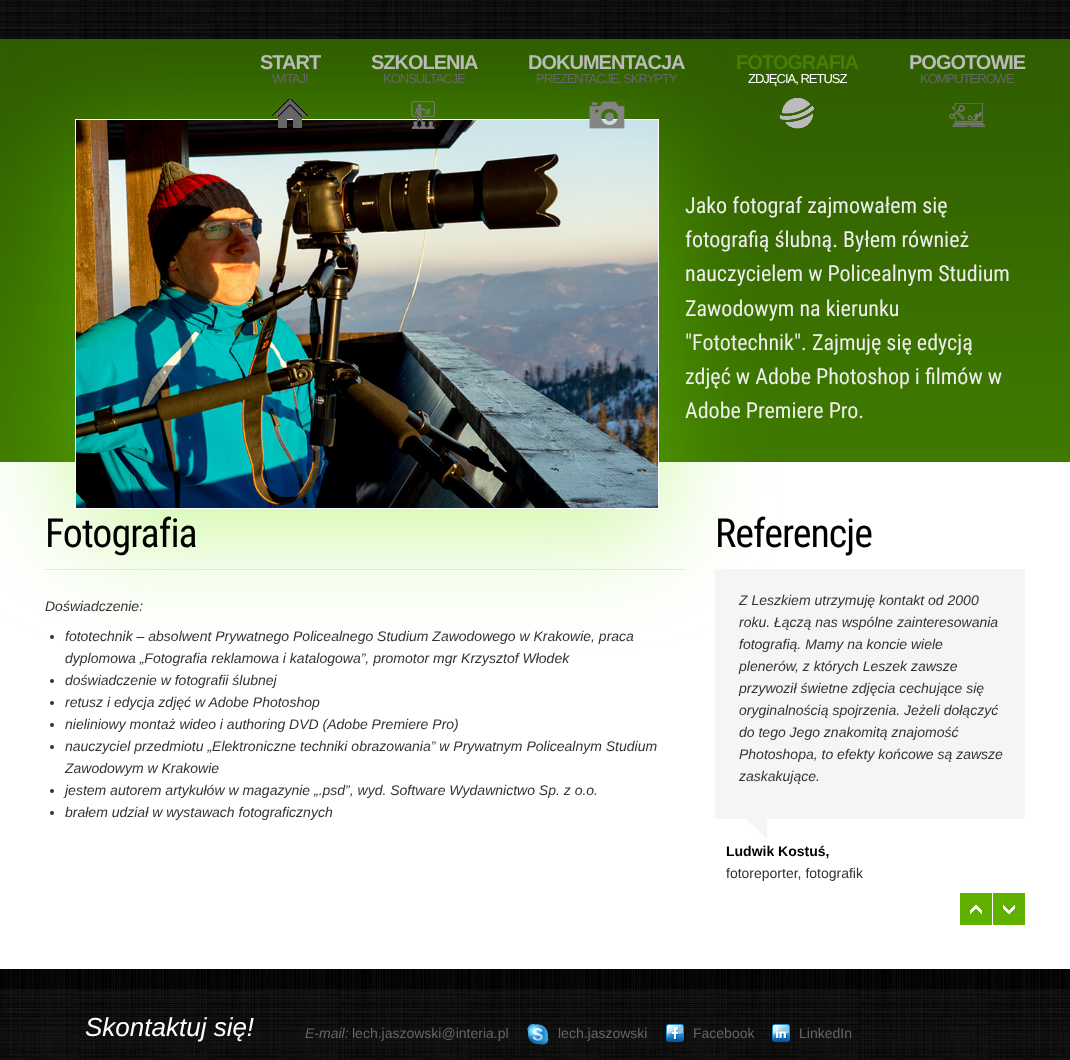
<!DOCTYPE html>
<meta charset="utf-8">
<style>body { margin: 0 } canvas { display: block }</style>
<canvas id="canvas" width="1070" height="1060"></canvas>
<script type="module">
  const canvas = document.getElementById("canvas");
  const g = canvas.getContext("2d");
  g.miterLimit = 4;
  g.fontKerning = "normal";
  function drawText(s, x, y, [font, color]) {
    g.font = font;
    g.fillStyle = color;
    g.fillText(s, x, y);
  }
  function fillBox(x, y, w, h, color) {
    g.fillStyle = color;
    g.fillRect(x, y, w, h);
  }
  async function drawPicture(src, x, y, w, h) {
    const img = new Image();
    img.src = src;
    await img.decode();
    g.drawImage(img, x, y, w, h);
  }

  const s1 = ["bold 20px Liberation Sans", "#BBBBBB"];
  const s2 = ["13px Liberation Sans", "#666666"];
  const s3 = ["bold 20px Liberation Sans", "#497E04"];
  const s4 = ["13px Liberation Sans", "#FFFFFF"];
  const s5 = ["22px Roboto Condensed", "#EEEEEE"];
  const s6 = ["40px Roboto Condensed", "#000000"];
  const s7 = ["italic 14px Liberation Sans", "#333333"];
  const s8 = ["bold 14px Liberation Sans", "#000000"];
  const s9 = ["14px Liberation Sans", "#333333"];
  const s10 = ["italic 26px Liberation Sans", "#FFFFFF"];
  const s11 = ["italic 14px Liberation Sans", "#666666"];
  const s12 = ["14px Liberation Sans", "#666666"];

  fillBox(0, 0, 1070, 1060, "#FFFFFF");
  await drawPicture("pic1.png", 0, 0, 1070, 39);
  await drawPicture("pic2.png", 0, 39, 1070, 423);
  g.fillStyle = "rgba(120, 236, 0, 0.4)";
  g.filter = "blur(55px)";
  g.beginPath();
  g.rect(74, 138, 586, 392);
  g.fill();
  g.filter = "none";
  g.strokeStyle = "#FFFFFF";
  g.strokeRect(75.5, 119.5, 583, 389);
  await drawPicture("pic8.png", 76, 120, 582, 388);
  await drawPicture("pic3.png", 272, 99, 36, 29);
  g.letterSpacing = "-1px";
  drawText("START", 260, 69, s1);
  drawText("WITAJ!", 272, 83, s2);
  await drawPicture("pic4.png", 411, 101, 24, 28);
  drawText("SZKOLENIA", 371, 69, s1);
  drawText("KONSULTACJE", 383, 83, s2);
  await drawPicture("pic5.png", 589, 101, 36, 28);
  drawText("DOKUMENTACJA", 528, 69, s1);
  drawText("PREZENTACJE, SKRYPTY", 536, 83, s2);
  await drawPicture("pic6.png", 779, 97, 36, 32);
  drawText("FOTOGRAFIA", 736, 69, s3);
  drawText("ZDJĘCIA, RETUSZ", 748, 83, s4);
  await drawPicture("pic7.png", 949, 103, 36, 24);
  drawText("POGOTOWIE", 909, 69, s1);
  drawText("KOMPUTEROWE", 920, 83, s2);
  g.letterSpacing = "0px";
  drawText("Jako fotograf zajmowałem się", 685, 213, s5);
  drawText("fotografią ślubną. Byłem również", 685, 247, s5);
  drawText("nauczycielem w Policealnym Studium", 685, 281, s5);
  drawText("Zawodowym na kierunku", 685, 316, s5);
  drawText("\"Fototechnik\". Zajmuję się edycją", 685, 350, s5);
  drawText("zdjęć w Adobe Photoshop i filmów w", 685, 384, s5);
  drawText("Adobe Premiere Pro.", 685, 418, s5);
  fillBox(45, 569, 640, 1, "#E5E5E5");
  g.letterSpacing = "-1px";
  drawText("Fotografia", 45, 547, s6);
  g.letterSpacing = "0px";
  drawText("Doświadczenie:", 45, 611, s7);
  g.beginPath();
  g.arc(52, 637, 2, 0, Math.PI * 2);
  g.fill();
  drawText("fototechnik – absolwent Prywatnego Policealnego Studium Zawodowego w Krakowie, praca", 65, 641, s7);
  drawText("dyplomowa „Fotografia reklamowa i katalogowa”, promotor mgr Krzysztof Włodek", 65, 663, s7);
  g.beginPath();
  g.arc(52, 681, 2, 0, Math.PI * 2);
  g.fill();
  drawText("doświadczenie w fotografii ślubnej", 65, 685, s7);
  g.beginPath();
  g.arc(52, 703, 2, 0, Math.PI * 2);
  g.fill();
  drawText("retusz i edycja zdjęć w Adobe Photoshop", 65, 707, s7);
  g.beginPath();
  g.arc(52, 725, 2, 0, Math.PI * 2);
  g.fill();
  drawText("nieliniowy montaż wideo i authoring DVD (Adobe Premiere Pro)", 65, 729, s7);
  g.beginPath();
  g.arc(52, 747, 2, 0, Math.PI * 2);
  g.fill();
  drawText("nauczyciel przedmiotu „Elektroniczne techniki obrazowania” w Prywatnym Policealnym Studium", 65, 751, s7);
  drawText("Zawodowym w Krakowie", 65, 773, s7);
  g.beginPath();
  g.arc(52, 791, 2, 0, Math.PI * 2);
  g.fill();
  drawText("jestem autorem artykułów w magazynie „.psd”, wyd. Software Wydawnictwo Sp. z o.o.", 65, 795, s7);
  g.beginPath();
  g.arc(52, 813, 2, 0, Math.PI * 2);
  g.fill();
  drawText("brałem udział w wystawach fotograficznych", 65, 817, s7);
  g.letterSpacing = "-1px";
  drawText("Referencje", 715, 547, s6);
  fillBox(715, 569, 310, 250, "#F5F5F5");
  await drawPicture("pic9.png", 715, 819, 310, 21);
  g.letterSpacing = "0px";
  drawText("Z Leszkiem utrzymuję kontakt od 2000", 739, 605, s7);
  drawText("roku. Łączą nas wspólne zainteresowania", 739, 627, s7);
  drawText("fotografią. Mamy na koncie wiele", 739, 649, s7);
  drawText("plenerów, z których Leszek zawsze", 739, 671, s7);
  drawText("przywoził świetne zdjęcia cechujące się", 739, 693, s7);
  drawText("oryginalnością spojrzenia. Jeżeli dołączyć", 739, 715, s7);
  drawText("do tego Jego znakomitą znajomość", 739, 737, s7);
  drawText("Photoshopa, to efekty końcowe są zawsze", 739, 759, s7);
  drawText("zaskakujące.", 739, 781, s7);
  drawText("Ludwik Kostuś,", 726, 856, s8);
  drawText("fotoreporter, fotografik", 726, 878, s9);
  await drawPicture("pic10.png", 960, 893, 32, 32);
  await drawPicture("pic11.png", 993, 893, 32, 32);
  await drawPicture("pic12.png", 0, 969, 1070, 91);
  drawText("Skontaktuj się!", 85, 1036, s10);
  drawText("E-mail:", 305, 1038, s11);
  drawText("lech.jaszowski@interia.pl", 352, 1038, s12);
  await drawPicture("pic13.png", 527, 1024, 22, 21);
  drawText("lech.jaszowski", 558, 1038, s12);
  await drawPicture("pic14.png", 666, 1024, 18, 18);
  drawText("Facebook", 693, 1038, s12);
  await drawPicture("pic15.png", 772, 1024, 18, 18);
  drawText("LinkedIn", 799, 1038, s12);
</script>
